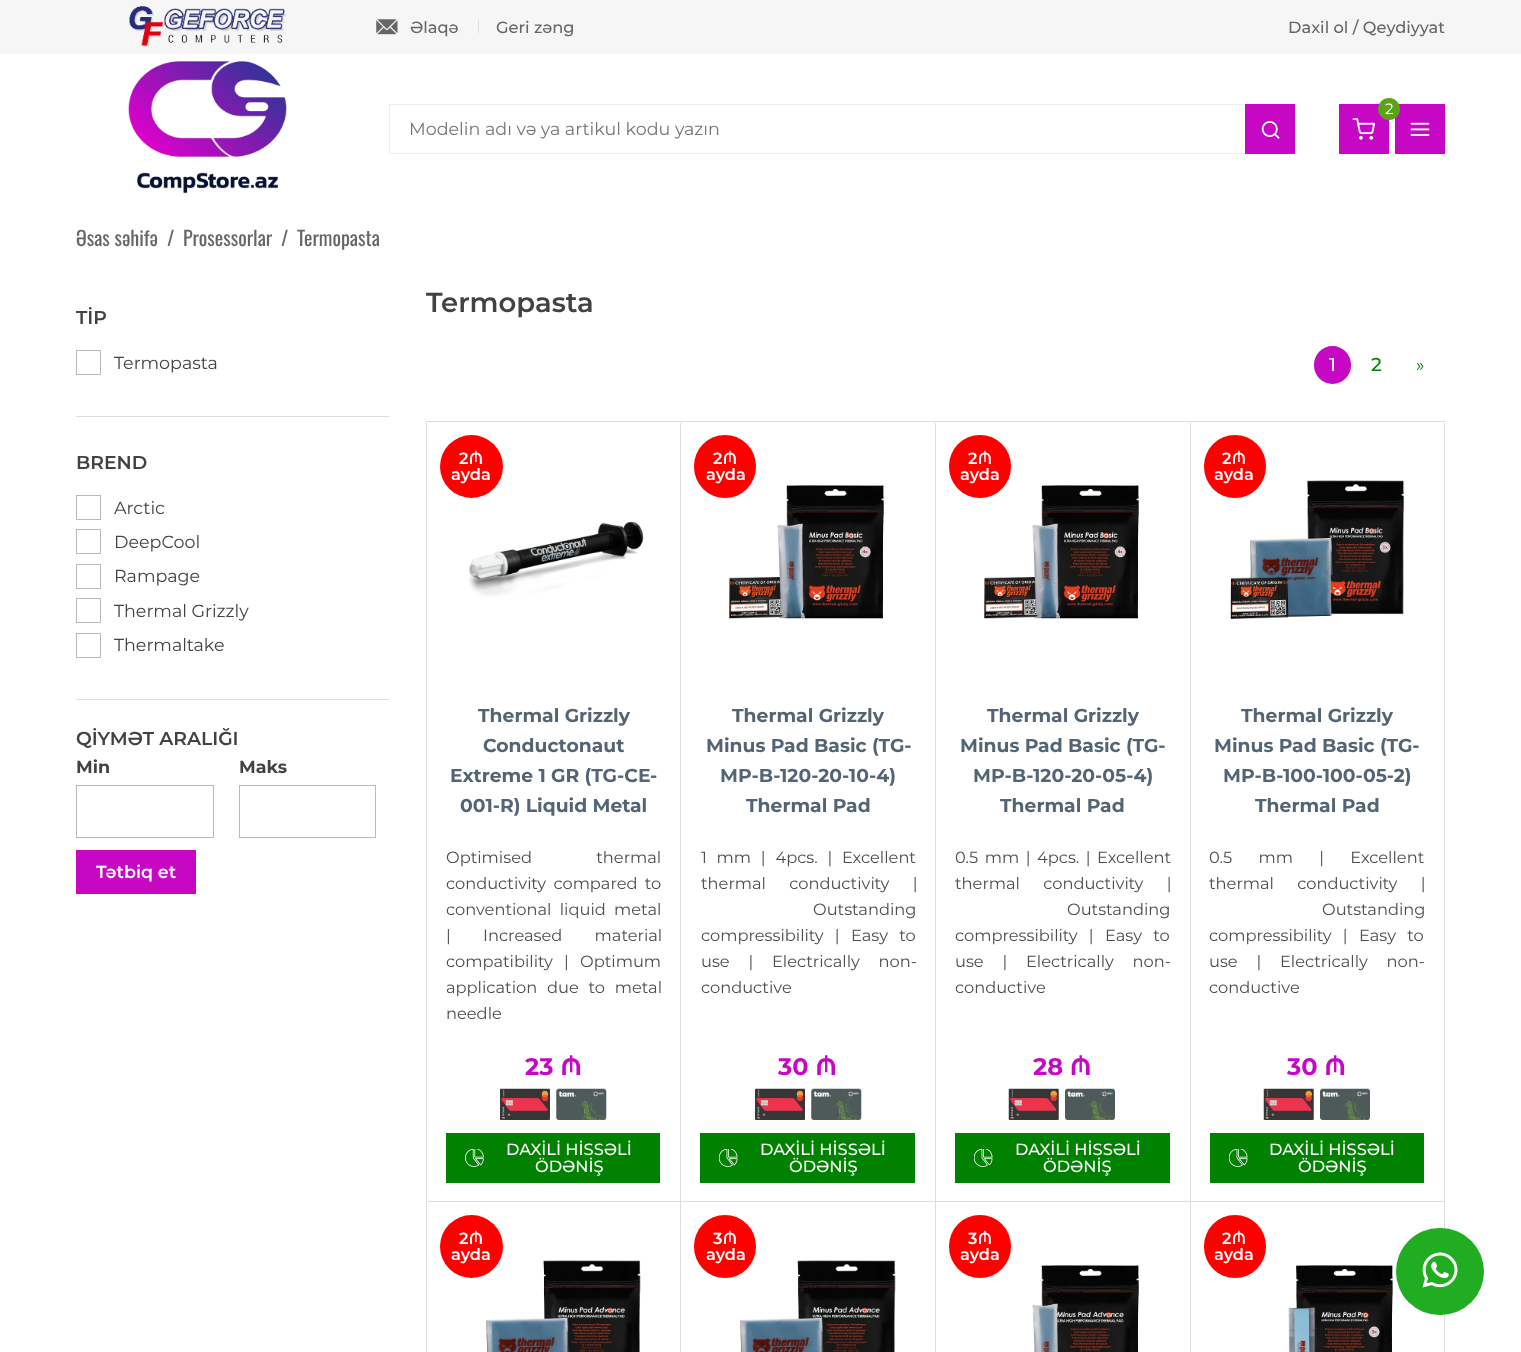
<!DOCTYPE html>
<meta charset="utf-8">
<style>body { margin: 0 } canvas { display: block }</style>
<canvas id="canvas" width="1521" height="1352"></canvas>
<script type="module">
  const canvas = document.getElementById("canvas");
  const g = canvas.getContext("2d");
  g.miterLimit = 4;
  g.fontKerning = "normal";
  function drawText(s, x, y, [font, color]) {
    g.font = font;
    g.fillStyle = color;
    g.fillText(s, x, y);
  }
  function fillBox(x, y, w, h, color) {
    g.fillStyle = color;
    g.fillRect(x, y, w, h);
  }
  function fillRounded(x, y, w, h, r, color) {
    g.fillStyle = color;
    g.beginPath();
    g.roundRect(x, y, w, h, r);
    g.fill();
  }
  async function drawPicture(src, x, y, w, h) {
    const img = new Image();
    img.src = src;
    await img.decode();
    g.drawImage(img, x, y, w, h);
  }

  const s1 = ["500 16.25px Montserrat", "#666666"];
  const s2 = ["15px Montserrat", "#FFFFFF"];
  const s3 = ["17.5px Montserrat", "#757575"];
  const s4 = ["20px Oswald", "#666666"];
  const s5 = ["600 18.75px Montserrat", "#424242"];
  const s6 = ["17.5px Montserrat", "#424242"];
  const s7 = ["bold 17.5px Montserrat", "#424242"];
  const s8 = ["600 17.5px Montserrat", "#FFFFFF"];
  const s9 = ["600 27.5px Montserrat", "#424242"];
  const s10 = ["500 18.75px Montserrat", "#FFFFFF"];
  const s11 = ["500 18.75px Montserrat", "#008100"];
  const s12 = ["17.5px Montserrat", "#008100"];
  const s13 = ["600 16.25px Montserrat", "#FFFFFF"];
  const s14 = ["bold 18.75px Montserrat", "#536475"];
  const s15 = ["16.25px Montserrat", "#4D4D4D"];
  const s16 = ["bold 24px Montserrat", "#C608C4"];
  const s17 = ["500 16.25px Montserrat", "#FFFFFF"];

  fillBox(0, 0, 1521, 1352, "#FFFFFF");
  fillBox(0, 0, 1521, 54, "#F6F6F6");
  await drawPicture("pic1.png", 129, 6, 157, 41);
  await drawPicture("pic2.png", 376, 19, 22, 16);
  drawText("Əlaqə", 410, 33, s1);
  fillBox(478, 20, 1, 13, "#E0E0E0");
  drawText("Geri zəng", 496, 33, s1);
  drawText("Daxil ol / Qeydiyyat", 1288, 33, s1);
  await drawPicture("pic3.png", 128, 61, 159, 133);
  fillBox(1339, 104, 50, 50, "#C608C4");
  fillBox(1395, 104, 50, 50, "#C608C4");
  g.fillStyle = "#59A317";
  g.beginPath();
  g.arc(1389, 109, 11, 0, Math.PI * 2);
  g.fill();
  drawText("2", 1385, 114, s2);
  await drawPicture("pic4.png", 1352, 118, 23, 22);
  await drawPicture("pic5.png", 1410, 122, 20, 14);
  g.strokeStyle = "#EEEEEE";
  g.strokeRect(389.5, 104.5, 905, 49);
  drawText("Modelin adı və ya artikul kodu yazın", 409, 135, s3);
  fillBox(1245, 104, 50, 50, "#C608C4");
  await drawPicture("pic6.png", 1261, 121, 19, 18);
  drawText("Əsas səhifə", 76, 246, s4);
  drawText("/", 167, 246, s4);
  drawText("Prosessorlar", 183, 246, s4);
  drawText("/", 281, 246, s4);
  drawText("Termopasta", 297, 246, s4);
  fillBox(76, 416, 313, 1, "#DDDDDD");
  drawText("TİP", 76, 324, s5);
  g.strokeStyle = "#BABABA";
  g.strokeRect(76.5, 350.5, 24, 24);
  drawText("Termopasta", 114, 369, s6);
  fillBox(76, 699, 313, 1, "#DDDDDD");
  drawText("BREND", 76, 469, s5);
  g.strokeRect(76.5, 495.5, 24, 24);
  drawText("Arctic", 114, 514, s6);
  g.strokeRect(76.5, 529.5, 24, 24);
  drawText("DeepCool", 114, 548, s6);
  g.strokeRect(76.5, 564.5, 24, 24);
  drawText("Rampage", 114, 582, s6);
  g.strokeRect(76.5, 598.5, 24, 24);
  drawText("Thermal Grizzly", 114, 617, s6);
  g.strokeRect(76.5, 633.5, 24, 24);
  drawText("Thermaltake", 114, 651, s6);
  drawText("QİYMƏT ARALIĞI", 76, 745, s5);
  drawText("Min", 76, 773, s7);
  g.strokeRect(76.5, 785.5, 137, 52);
  drawText("Maks", 239, 773, s7);
  g.strokeRect(239.5, 785.5, 136, 52);
  fillBox(76, 850, 120, 44, "#C608C4");
  drawText("Tətbiq et", 96, 878, s8);
  drawText("Termopasta", 426, 312, s9);
  fillRounded(1314, 346, 37, 38, 18.5, "#C608C4");
  drawText("1", 1329, 371, s10);
  drawText("2", 1371, 371, s11);
  drawText("»", 1416, 371, s12);
  fillBox(426, 421, 1019, 1, "#DDDDDD");
  fillBox(426, 421, 1, 931, "#DDDDDD");
  fillBox(680, 423, 1, 929, "#DDDDDD");
  fillBox(428, 1201, 253, 1, "#DDDDDD");
  g.fillStyle = "#FF0000";
  g.beginPath();
  g.arc(471.5, 466.5, 31.5, 0, Math.PI * 2);
  g.fill();
  drawText("2₼", 459, 464, s13);
  drawText("ayda", 451, 480, s13);
  await drawPicture("pic7.png", 469, 522, 175, 75);
  drawText("Thermal Grizzly", 478, 722, s14);
  drawText("Conductonaut", 483, 752, s14);
  drawText("Extreme 1 GR (TG-CE-", 450, 782, s14);
  drawText("001-R) Liquid Metal", 460, 812, s14);
  g.wordSpacing = "60px";
  drawText("Optimised thermal", 446, 863, s15);
  g.wordSpacing = "3px";
  drawText("conductivity compared to", 446, 889, s15);
  g.wordSpacing = "4px";
  drawText("conventional liquid metal", 446, 915, s15);
  g.wordSpacing = "28px";
  drawText("| Increased material", 446, 941, s15);
  g.wordSpacing = "7px";
  drawText("compatibility | Optimum", 446, 967, s15);
  g.wordSpacing = "5.5px";
  drawText("application due to metal", 446, 993, s15);
  g.wordSpacing = "0px";
  drawText("needle", 446, 1019, s15);
  drawText("23 ₼", 525, 1075, s16);
  await drawPicture("pic8.png", 500, 1088, 50, 32);
  await drawPicture("pic9.png", 556, 1088, 51, 32);
  fillBox(446, 1133, 214, 50, "#008100");
  await drawPicture("pic10.png", 465, 1149, 19, 18);
  drawText("DAXİLİ HİSSƏLİ", 506, 1155, s17);
  drawText("ÖDƏNİŞ", 535, 1172, s17);
  fillBox(935, 423, 1, 929, "#DDDDDD");
  fillBox(681, 1201, 255, 1, "#DDDDDD");
  await drawPicture("pic11.png", 729, 485, 155, 134);
  fillRounded(694, 435, 62, 63, 31, "#FF0000");
  drawText("2₼", 713, 464, s13);
  drawText("ayda", 706, 480, s13);
  drawText("Thermal Grizzly", 732, 722, s14);
  drawText("Minus Pad Basic (TG-", 706, 752, s14);
  drawText("MP-B-120-20-10-4)", 720, 782, s14);
  drawText("Thermal Pad", 746, 812, s14);
  g.wordSpacing = "5.5px";
  drawText("1 mm | 4pcs. | Excellent", 701, 863, s15);
  g.wordSpacing = "19px";
  drawText("thermal conductivity |", 701, 889, s15);
  g.wordSpacing = "0px";
  drawText("Outstanding", 813, 915, s15);
  g.wordSpacing = "7px";
  drawText("compressibility | Easy to", 701, 941, s15);
  g.wordSpacing = "14.5px";
  drawText("use | Electrically non-", 701, 967, s15);
  g.wordSpacing = "0px";
  drawText("conductive", 701, 993, s15);
  drawText("30 ₼", 778, 1075, s16);
  await drawPicture("pic8.png", 755, 1088, 50, 32);
  await drawPicture("pic9.png", 811, 1088, 51, 32);
  fillBox(700, 1133, 215, 50, "#008100");
  await drawPicture("pic12.png", 719, 1149, 19, 18);
  drawText("DAXİLİ HİSSƏLİ", 760, 1155, s17);
  drawText("ÖDƏNİŞ", 789, 1172, s17);
  fillBox(1190, 423, 1, 929, "#DDDDDD");
  fillBox(936, 1201, 255, 1, "#DDDDDD");
  await drawPicture("pic11.png", 984, 485, 155, 134);
  fillRounded(949, 435, 62, 63, 31, "#FF0000");
  drawText("2₼", 968, 464, s13);
  drawText("ayda", 960, 480, s13);
  drawText("Thermal Grizzly", 987, 722, s14);
  drawText("Minus Pad Basic (TG-", 960, 752, s14);
  drawText("MP-B-120-20-05-4)", 973, 782, s14);
  drawText("Thermal Pad", 1000, 812, s14);
  g.wordSpacing = "2.25px";
  drawText("0.5 mm | 4pcs. | Excellent", 955, 863, s15);
  g.wordSpacing = "19px";
  drawText("thermal conductivity |", 955, 889, s15);
  g.wordSpacing = "0px";
  drawText("Outstanding", 1067, 915, s15);
  g.wordSpacing = "7px";
  drawText("compressibility | Easy to", 955, 941, s15);
  g.wordSpacing = "14.5px";
  drawText("use | Electrically non-", 955, 967, s15);
  g.wordSpacing = "0px";
  drawText("conductive", 955, 993, s15);
  drawText("28 ₼", 1033, 1075, s16);
  await drawPicture("pic13.png", 1008, 1088, 51, 32);
  await drawPicture("pic14.png", 1065, 1088, 50, 32);
  fillBox(955, 1133, 215, 50, "#008100");
  await drawPicture("pic12.png", 974, 1149, 19, 18);
  drawText("DAXİLİ HİSSƏLİ", 1015, 1155, s17);
  drawText("ÖDƏNİŞ", 1043, 1172, s17);
  fillBox(1444, 423, 1, 929, "#DDDDDD");
  fillBox(1191, 1201, 254, 1, "#DDDDDD");
  await drawPicture("pic15.png", 1230, 480, 175, 139);
  fillRounded(1204, 435, 62, 63, 31, "#FF0000");
  drawText("2₼", 1222, 464, s13);
  drawText("ayda", 1214, 480, s13);
  drawText("Thermal Grizzly", 1241, 722, s14);
  drawText("Minus Pad Basic (TG-", 1214, 752, s14);
  drawText("MP-B-100-100-05-2)", 1223, 782, s14);
  drawText("Thermal Pad", 1255, 812, s14);
  g.wordSpacing = "22px";
  drawText("0.5 mm | Excellent", 1209, 863, s15);
  g.wordSpacing = "19px";
  drawText("thermal conductivity |", 1209, 889, s15);
  g.wordSpacing = "0px";
  drawText("Outstanding", 1322, 915, s15);
  g.wordSpacing = "7px";
  drawText("compressibility | Easy to", 1209, 941, s15);
  g.wordSpacing = "14.5px";
  drawText("use | Electrically non-", 1209, 967, s15);
  g.wordSpacing = "0px";
  drawText("conductive", 1209, 993, s15);
  drawText("30 ₼", 1287, 1075, s16);
  await drawPicture("pic16.png", 1263, 1088, 51, 32);
  await drawPicture("pic14.png", 1320, 1088, 50, 32);
  fillBox(1210, 1133, 214, 50, "#008100");
  await drawPicture("pic12.png", 1229, 1149, 19, 18);
  drawText("DAXİLİ HİSSƏLİ", 1269, 1155, s17);
  drawText("ÖDƏNİŞ", 1298, 1172, s17);
  await drawPicture("pic17.png", 486, 1260, 155, 92);
  g.fillStyle = "#FF0000";
  g.beginPath();
  g.arc(471.5, 1246.5, 31.5, 0, Math.PI * 2);
  g.fill();
  drawText("2₼", 459, 1244, s13);
  drawText("ayda", 451, 1260, s13);
  await drawPicture("pic18.png", 740, 1260, 156, 92);
  fillRounded(694, 1215, 62, 63, 31, "#FF0000");
  drawText("3₼", 713, 1244, s13);
  drawText("ayda", 706, 1260, s13);
  fillRounded(949, 1215, 62, 63, 31, "#FF0000");
  drawText("3₼", 968, 1244, s13);
  drawText("ayda", 960, 1260, s13);
  await drawPicture("pic19.png", 1032, 1265, 107, 87);
  fillRounded(1204, 1215, 62, 63, 31, "#FF0000");
  drawText("2₼", 1222, 1244, s13);
  drawText("ayda", 1214, 1260, s13);
  await drawPicture("pic20.png", 1288, 1265, 105, 87);
  fillRounded(1396, 1228, 88, 87, 43.5, "#21AD21");
  await drawPicture("pic21.png", 1422, 1252, 36, 36);
</script>
